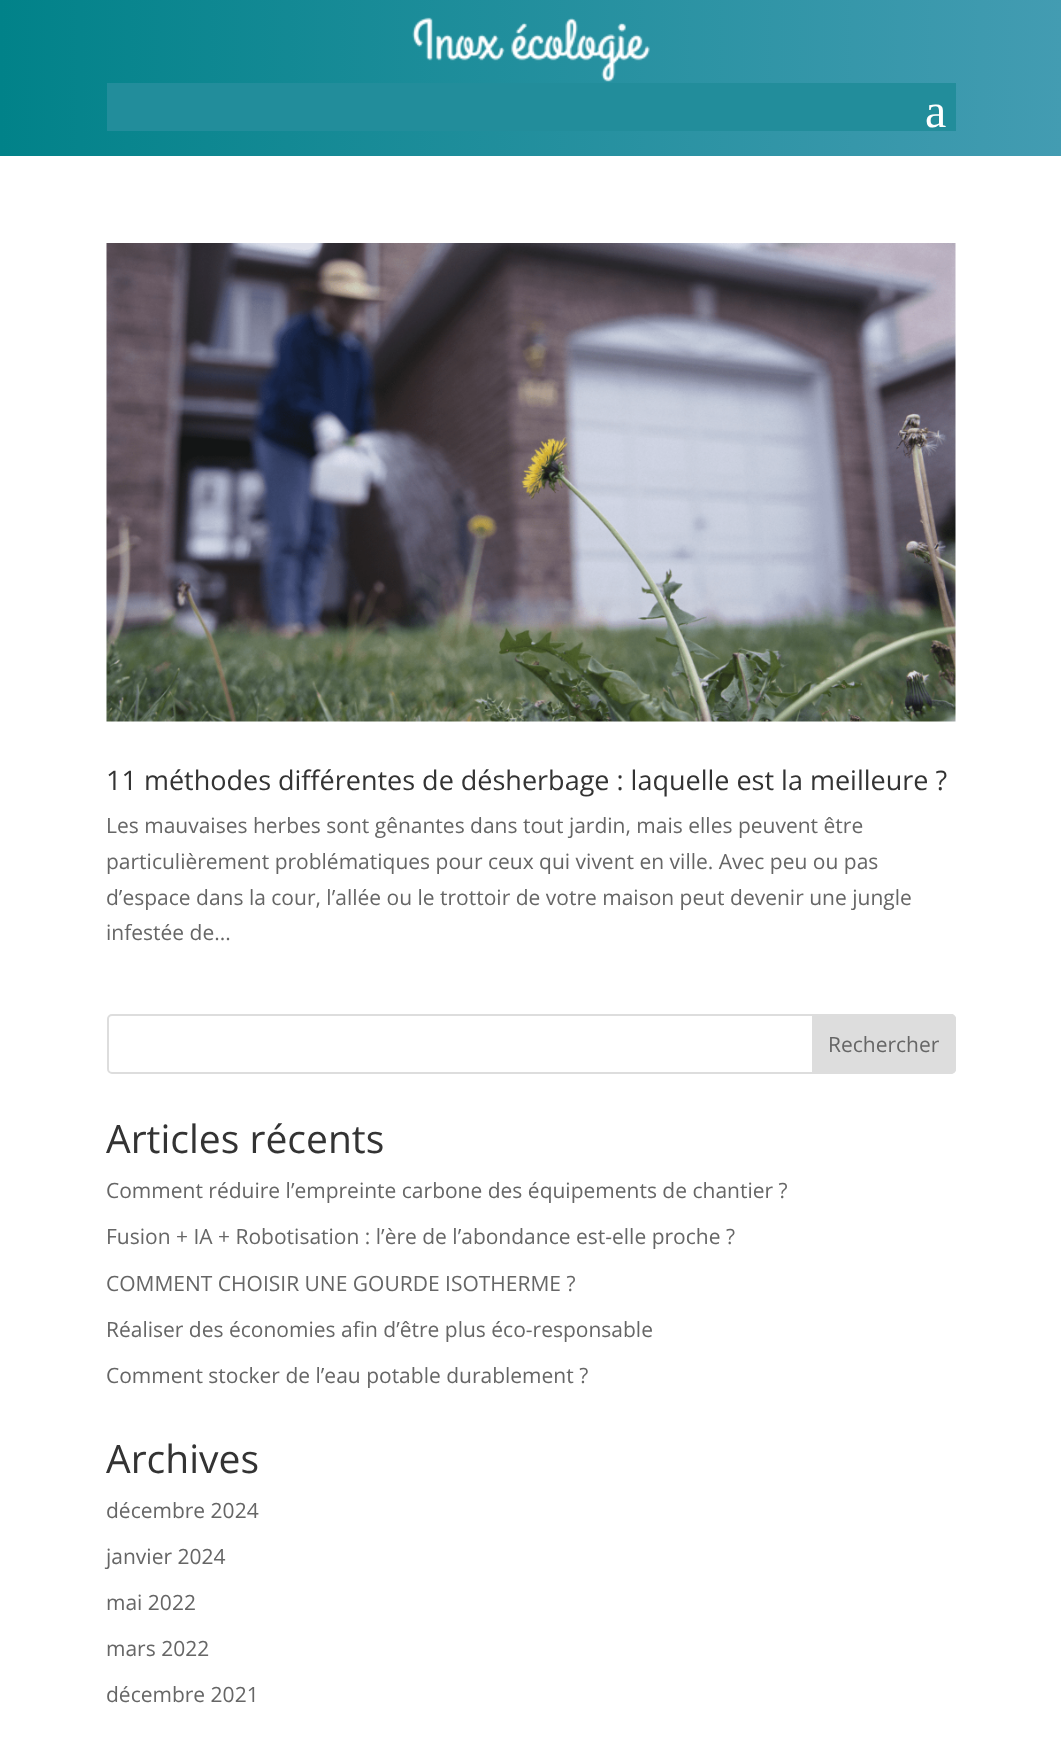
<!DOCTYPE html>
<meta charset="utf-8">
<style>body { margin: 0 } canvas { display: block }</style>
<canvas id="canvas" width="1061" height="1737"></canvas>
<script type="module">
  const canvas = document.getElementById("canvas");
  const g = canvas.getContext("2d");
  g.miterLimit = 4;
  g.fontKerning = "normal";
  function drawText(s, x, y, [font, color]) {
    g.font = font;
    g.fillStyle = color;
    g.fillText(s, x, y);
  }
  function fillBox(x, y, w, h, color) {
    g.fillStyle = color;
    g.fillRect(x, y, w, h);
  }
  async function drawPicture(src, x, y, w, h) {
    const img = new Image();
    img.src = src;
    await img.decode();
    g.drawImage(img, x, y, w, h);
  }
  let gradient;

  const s1 = ["48px Liberation Serif", "#FFFFFF"];
  const s2 = ["27px Open Sans", "#333333"];
  const s3 = ["21px Open Sans", "#666666"];
  const s4 = ["39px Open Sans", "#333333"];

  fillBox(0, 0, 1061, 1737, "#FFFFFF");
  gradient = g.createLinearGradient(0, 78, 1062, 78);
  gradient.addColorStop(0, "#018289");
  gradient.addColorStop(1, "#439CB2");
  g.fillStyle = gradient;
  g.fillRect(0, 0, 1061, 156);
  await drawPicture("pic1.png", 412, 17, 238, 65);
  fillBox(107, 83, 849, 48, "#228D9B");
  drawText("a", 925, 127, s1);
  await drawPicture("pic2.png", 106, 243, 850, 479);
  drawText("11 méthodes différentes de désherbage : laquelle est la meilleure ?", 106, 790, s2);
  drawText("Les mauvaises herbes sont gênantes dans tout jardin, mais elles peuvent être", 106, 833, s3);
  drawText("particulièrement problématiques pour ceux qui vivent en ville. Avec peu ou pas", 106, 869, s3);
  drawText("d’espace dans la cour, l’allée ou le trottoir de votre maison peut devenir une jungle", 106, 905, s3);
  drawText("infestée de...", 106, 940, s3);
  g.beginPath();
  g.roundRect(108, 1015, 847, 58, 4);
  g.strokeStyle = "#DDDDDD";
  g.lineWidth = 2;
  g.stroke();
  g.fillStyle = "#DDDDDD";
  g.beginPath();
  g.roundRect(813, 1015, 142, 58, [0, 4, 4, 0]);
  g.fill();
  g.stroke();
  drawText("Rechercher", 828, 1052, s3);
  drawText("Articles récents", 106, 1153, s4);
  drawText("Comment réduire l’empreinte carbone des équipements de chantier ?", 106, 1198, s3);
  drawText("Fusion + IA + Robotisation : l’ère de l’abondance est-elle proche ?", 106, 1244, s3);
  drawText("COMMENT CHOISIR UNE GOURDE ISOTHERME ?", 106, 1291, s3);
  drawText("Réaliser des économies afin d’être plus éco-responsable", 106, 1337, s3);
  drawText("Comment stocker de l’eau potable durablement ?", 106, 1383, s3);
  drawText("Archives", 106, 1473, s4);
  drawText("décembre 2024", 106, 1518, s3);
  drawText("janvier 2024", 106, 1564, s3);
  drawText("mai 2022", 106, 1610, s3);
  drawText("mars 2022", 106, 1656, s3);
  drawText("décembre 2021", 106, 1702, s3);
</script>
